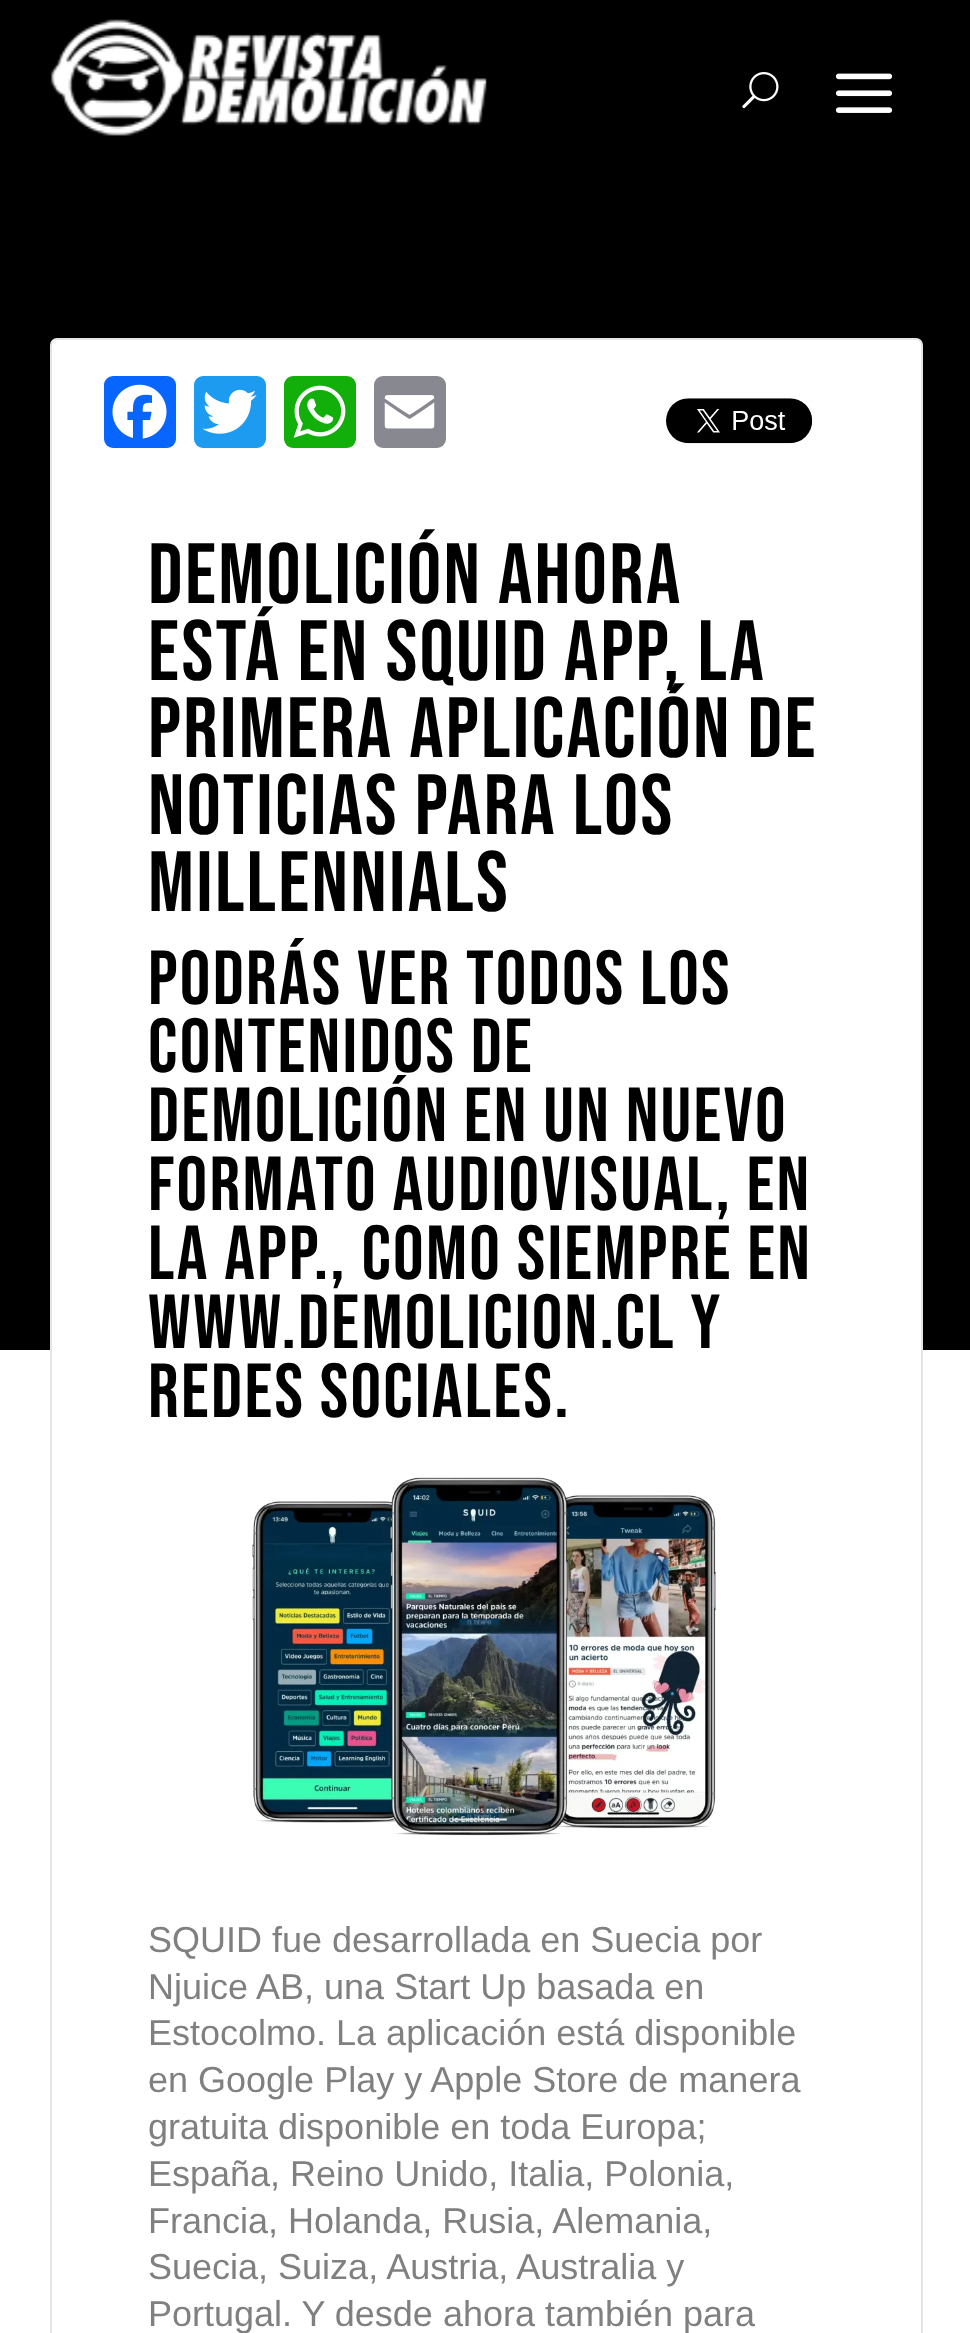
<!DOCTYPE html>
<meta charset="utf-8">
<style>body { margin: 0 } canvas { display: block }</style>
<canvas id="canvas" width="970" height="2333"></canvas>
<script type="module">
  const canvas = document.getElementById("canvas");
  const g = canvas.getContext("2d");
  g.miterLimit = 4;
  g.fontKerning = "normal";
  function drawText(s, x, y, [font, color]) {
    g.font = font;
    g.fillStyle = color;
    g.fillText(s, x, y);
  }
  function fillBox(x, y, w, h, color) {
    g.fillStyle = color;
    g.fillRect(x, y, w, h);
  }
  function fillRounded(x, y, w, h, r, color) {
    g.fillStyle = color;
    g.beginPath();
    g.roundRect(x, y, w, h, r);
    g.fill();
  }
  async function drawPicture(src, x, y, w, h) {
    const img = new Image();
    img.src = src;
    await img.decode();
    g.drawImage(img, x, y, w, h);
  }

  const s1 = ["85.5px Bebas Neue", "#000000"];
  const s2 = ["76.5px Bebas Neue", "#000000"];
  const s3 = ["36px Liberation Sans", "#808080"];

  fillBox(0, 0, 970, 2333, "#FFFFFF");
  fillBox(0, 0, 970, 1350, "#000000");
  await drawPicture("pic1.png", 50, 19, 437, 117);
  await drawPicture("pic2.png", 742, 72, 37, 37);
  await drawPicture("pic3.png", 835, 73, 58, 40);
  fillRounded(50, 338, 873, 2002, 7, "#FFFFFF");
  g.beginPath();
  g.roundRect(51, 339, 871, 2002, 6);
  g.strokeStyle = "rgba(0, 0, 0, 0.1)";
  g.lineWidth = 2;
  g.stroke();
  fillRounded(104, 376, 72, 72, 9, "#0866FF");
  await drawPicture("pic4.png", 112, 384, 55, 55);
  fillRounded(194, 376, 72, 72, 9, "#1D9BF0");
  await drawPicture("pic5.png", 202, 389, 55, 45);
  fillRounded(284, 376, 72, 72, 9, "#12AF0A");
  await drawPicture("pic6.png", 293, 385, 53, 53);
  fillRounded(374, 376, 72, 72, 9, "#888990");
  await drawPicture("pic7.png", 384, 395, 51, 34);
  await drawPicture("pic8.png", 666, 398, 147, 46);
  g.letterSpacing = "2.25px";
  drawText("DEMOLICIÓN AHORA", 148, 603, s1);
  drawText("ESTÁ EN SQUID APP, LA", 148, 680, s1);
  drawText("PRIMERA APLICACIÓN DE", 148, 757, s1);
  drawText("NOTICIAS PARA LOS", 148, 834, s1);
  drawText("MILLENNIALS", 148, 911, s1);
  drawText("PODRÁS VER TODOS LOS", 148, 1004, s2);
  drawText("CONTENIDOS DE", 148, 1072, s2);
  drawText("DEMOLICIÓN EN UN NUEVO", 148, 1141, s2);
  drawText("FORMATO AUDIOVISUAL, EN", 148, 1210, s2);
  drawText("LA APP., COMO SIEMPRE EN", 148, 1279, s2);
  drawText("WWW.DEMOLICION.CL Y", 148, 1348, s2);
  drawText("REDES SOCIALES.", 148, 1417, s2);
  await drawPicture("pic9.png", 252, 1477, 464, 359);
  g.letterSpacing = "0px";
  drawText("SQUID fue desarrollada en Suecia por", 148, 1952, s3);
  drawText("Njuice AB, una Start Up basada en", 148, 1999, s3);
  drawText("Estocolmo. La aplicación está disponible", 148, 2045, s3);
  drawText("en Google Play y Apple Store de manera", 148, 2092, s3);
  drawText("gratuita disponible en toda Europa;", 148, 2139, s3);
  drawText("España, Reino Unido, Italia, Polonia,", 148, 2186, s3);
  drawText("Francia, Holanda, Rusia, Alemania,", 148, 2233, s3);
  drawText("Suecia, Suiza, Austria, Australia y", 148, 2279, s3);
  drawText("Portugal. Y desde ahora también para", 148, 2326, s3);
</script>
